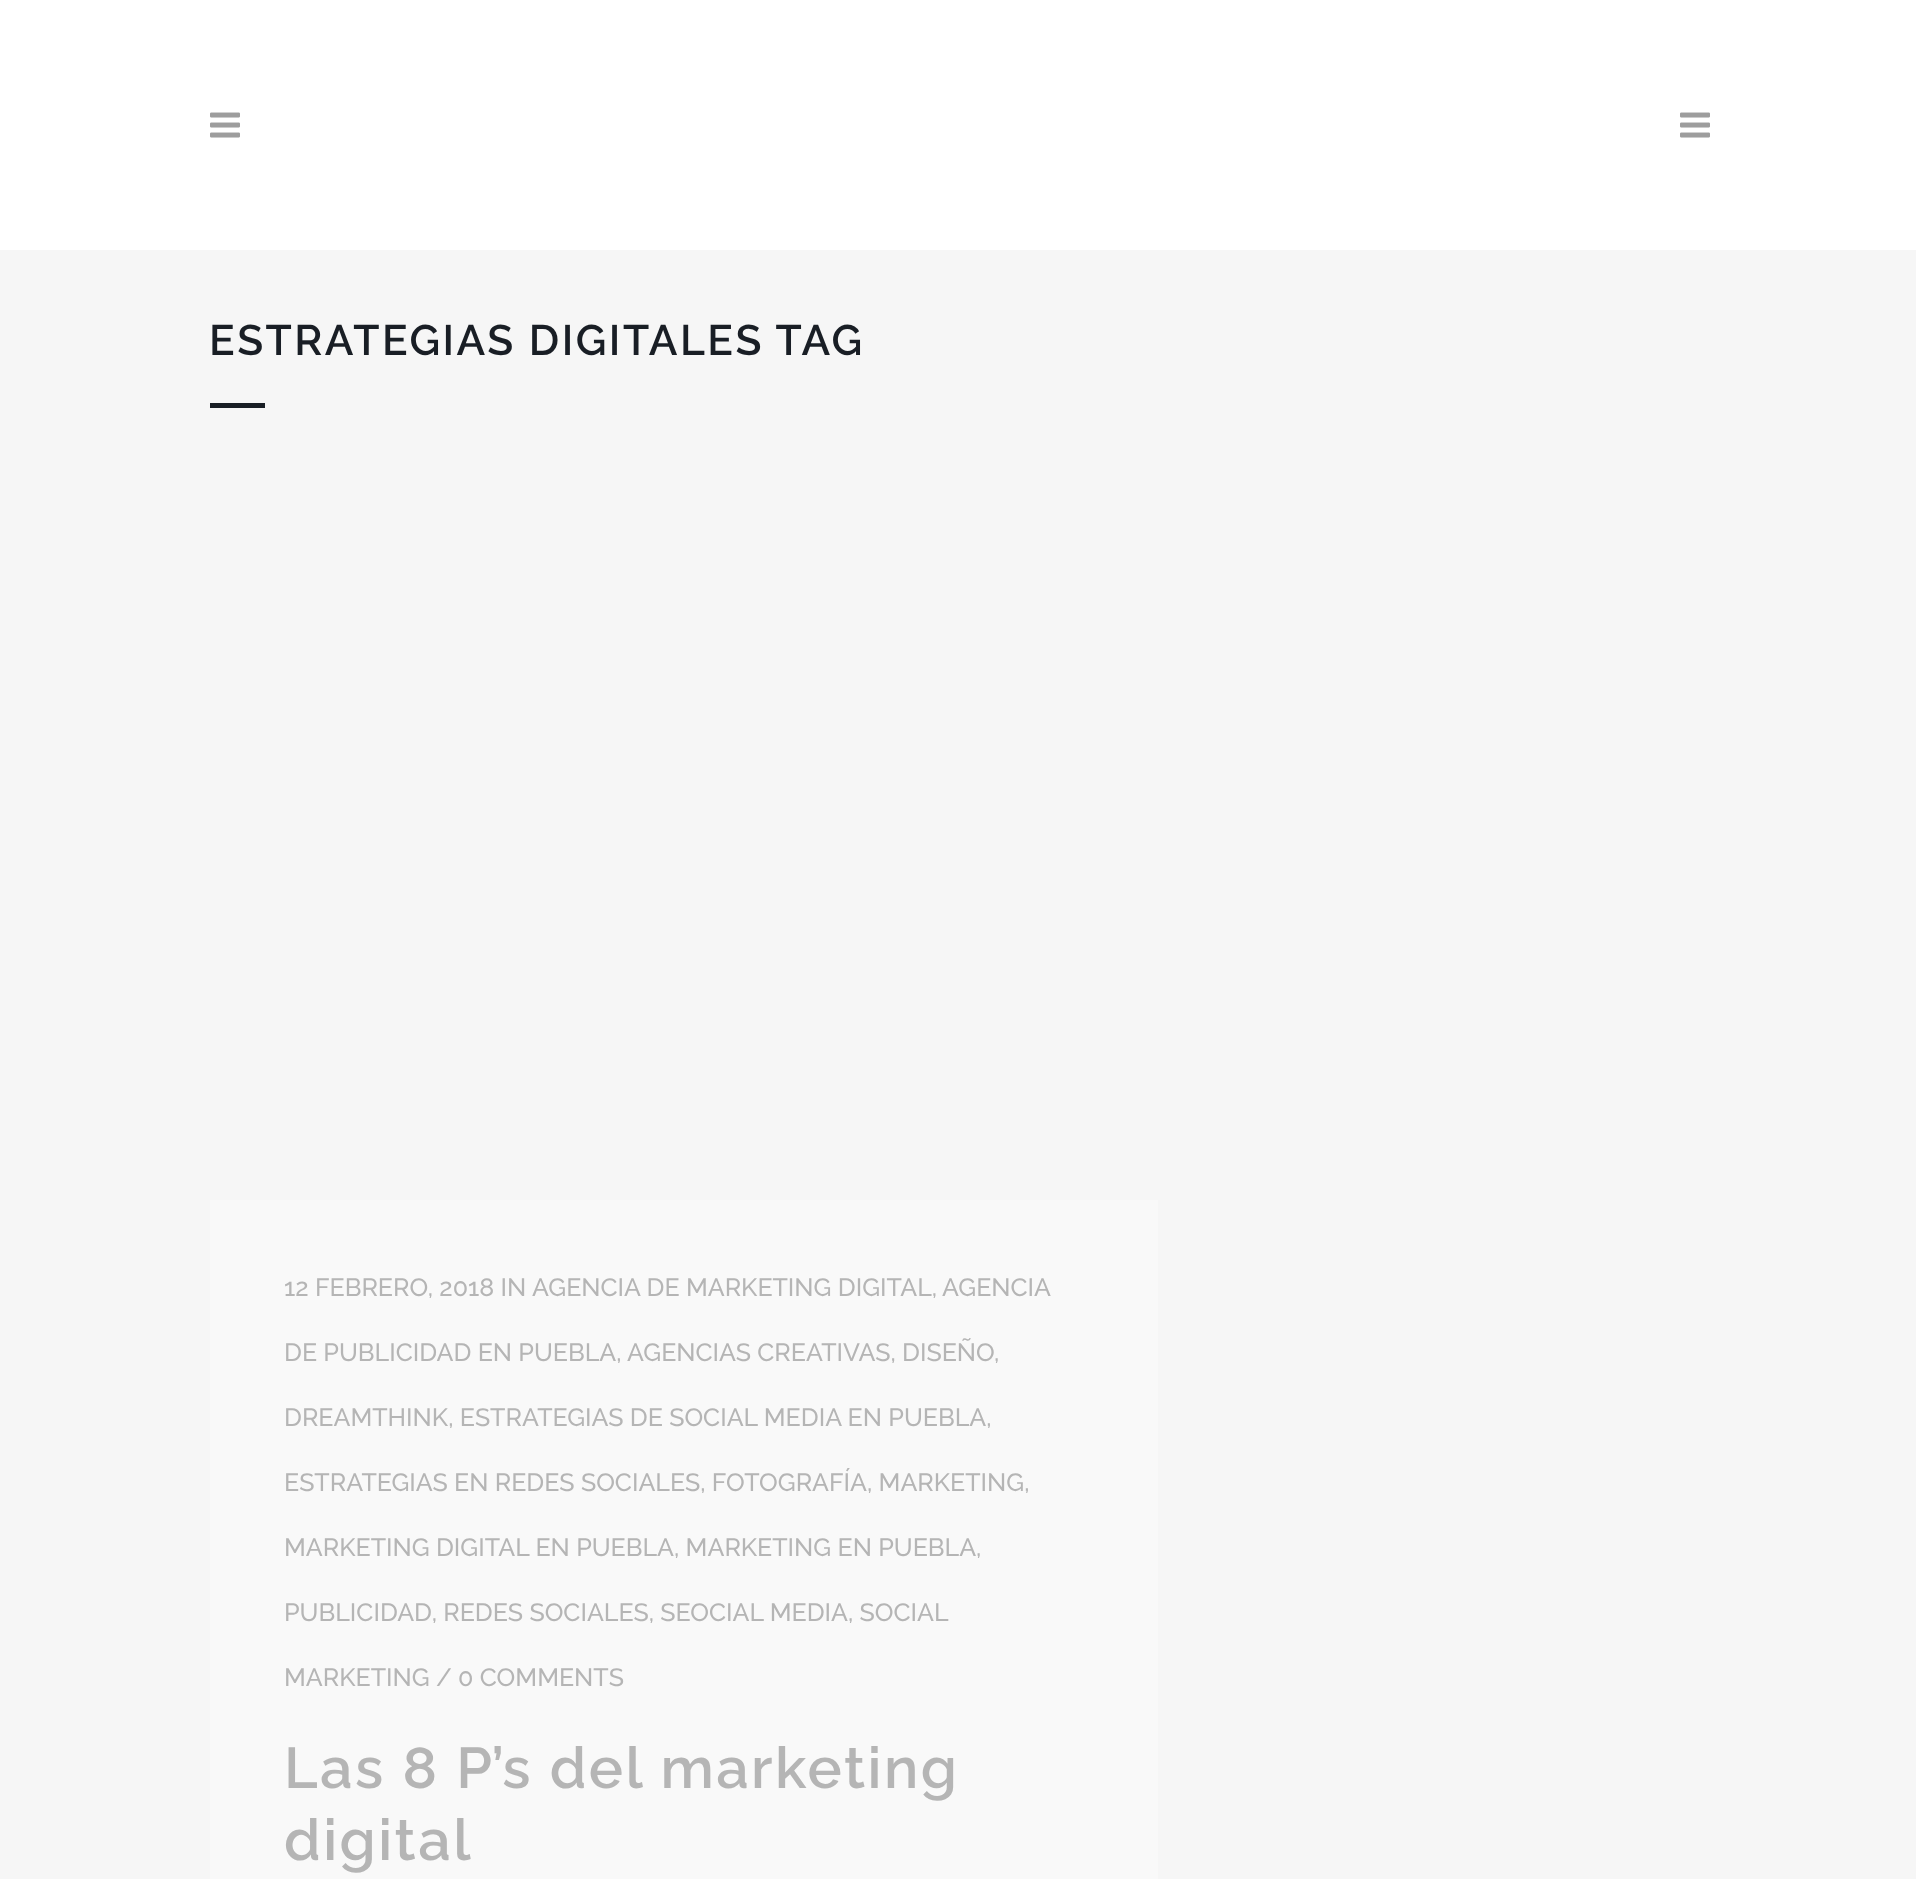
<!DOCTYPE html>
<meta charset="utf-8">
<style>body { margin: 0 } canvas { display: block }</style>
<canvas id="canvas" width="1916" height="1879"></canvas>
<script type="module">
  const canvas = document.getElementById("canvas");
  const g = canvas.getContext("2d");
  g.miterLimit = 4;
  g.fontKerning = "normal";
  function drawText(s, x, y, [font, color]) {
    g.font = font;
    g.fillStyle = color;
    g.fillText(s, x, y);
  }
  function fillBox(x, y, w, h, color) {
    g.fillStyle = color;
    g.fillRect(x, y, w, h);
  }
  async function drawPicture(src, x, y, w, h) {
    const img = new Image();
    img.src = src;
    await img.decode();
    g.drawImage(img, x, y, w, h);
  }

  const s1 = ["600 42.5px Raleway", "#191E25"];
  const s2 = ["500 25px Raleway", "#B5B5B5"];
  const s3 = ["600 57.5px Raleway", "#B5B5B5"];

  fillBox(0, 0, 1916, 1879, "#F6F6F6");
  fillBox(0, 0, 1916, 250, "#FFFFFF");
  await drawPicture("pic1.png", 210, 112, 30, 26);
  await drawPicture("pic1.png", 1680, 112, 30, 26);
  g.letterSpacing = "2.5px";
  drawText("ESTRATEGIAS DIGITALES TAG", 209, 355, s1);
  fillBox(210, 403, 55, 5, "#191E25");
  fillBox(210, 1200, 948, 679, "#F9F9F9");
  g.letterSpacing = "0px";
  drawText("12 FEBRERO, 2018 IN", 284, 1296, s2);
  drawText("AGENCIA DE MARKETING DIGITAL,", 532, 1296, s2);
  drawText("AGENCIA", 942, 1296, s2);
  drawText("DE PUBLICIDAD EN PUEBLA,", 284, 1361, s2);
  drawText("AGENCIAS CREATIVAS, DISEÑO", 627, 1361, s2);
  drawText(",", 994, 1361, s2);
  drawText("DREAMTHINK, ESTRATEGIAS DE SOCIAL MEDIA EN PUEBLA,", 284, 1426, s2);
  drawText("ESTRATEGIAS EN REDES SOCIALES, FOTOGRAFÍA, MARKETING,", 284, 1491, s2);
  drawText("MARKETING DIGITAL EN PUEBLA, MARKETING EN PUEBLA,", 284, 1556, s2);
  drawText("PUBLICIDAD, REDES SOCIALES, SEOCIAL MEDIA, SOCIAL", 284, 1621, s2);
  drawText("MARKETING / 0 COMMENTS", 284, 1686, s2);
  g.letterSpacing = "2.5px";
  drawText("Las 8 P’s del marketing", 284, 1788, s3);
  drawText("digital", 284, 1860, s3);
</script>
